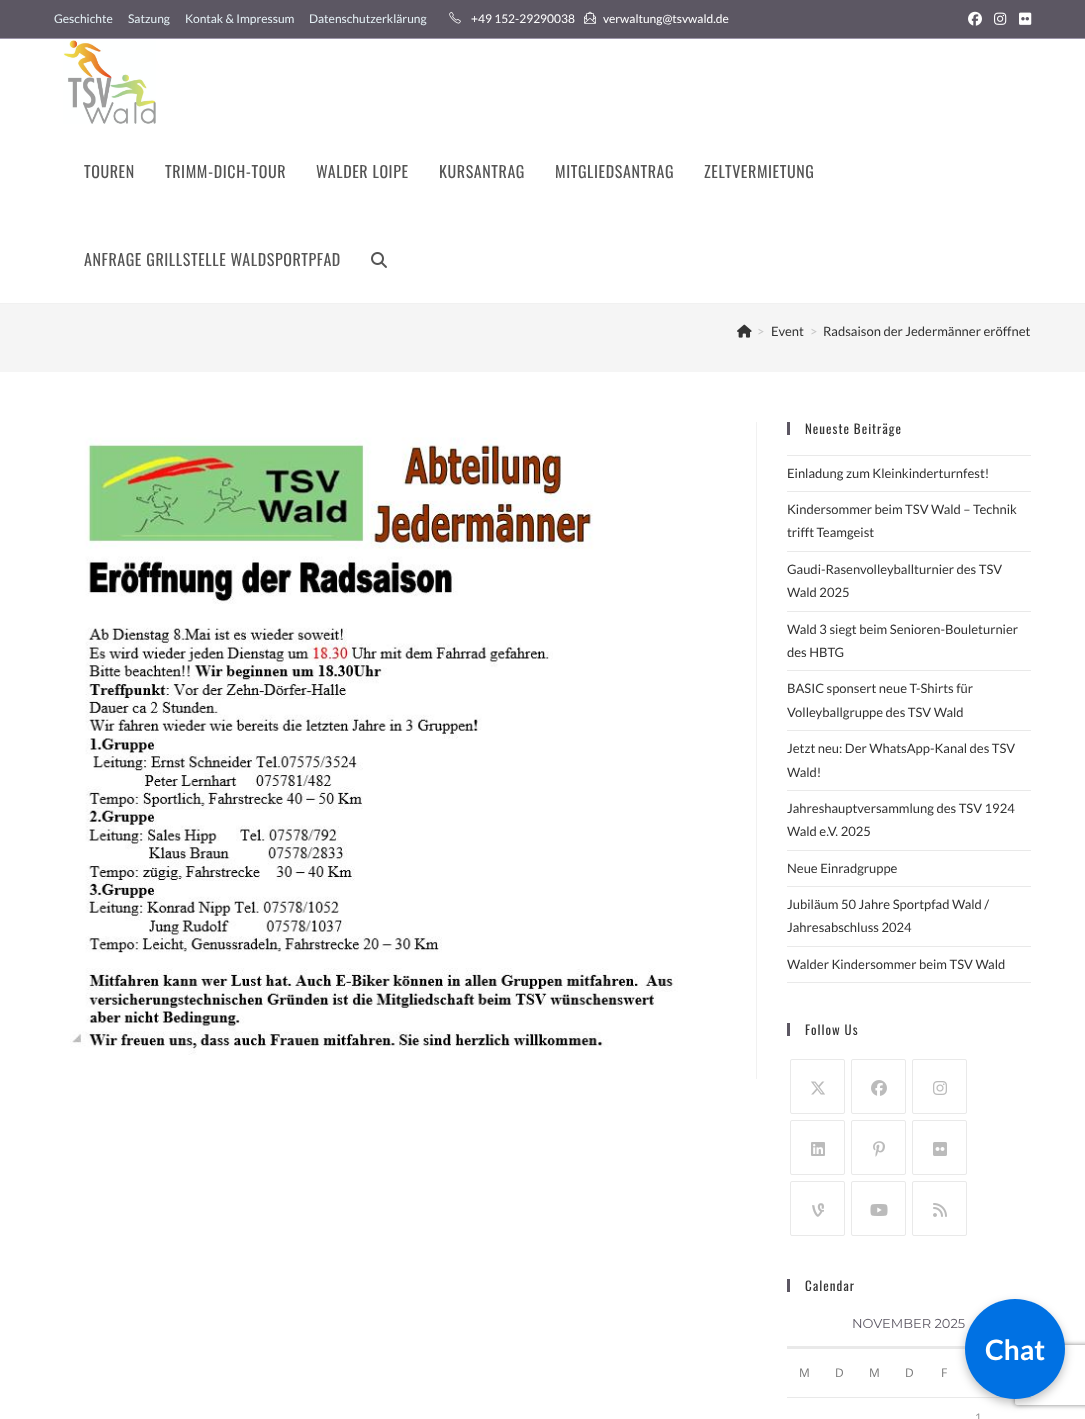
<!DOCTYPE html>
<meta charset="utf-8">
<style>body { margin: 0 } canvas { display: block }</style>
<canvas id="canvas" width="1085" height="1419"></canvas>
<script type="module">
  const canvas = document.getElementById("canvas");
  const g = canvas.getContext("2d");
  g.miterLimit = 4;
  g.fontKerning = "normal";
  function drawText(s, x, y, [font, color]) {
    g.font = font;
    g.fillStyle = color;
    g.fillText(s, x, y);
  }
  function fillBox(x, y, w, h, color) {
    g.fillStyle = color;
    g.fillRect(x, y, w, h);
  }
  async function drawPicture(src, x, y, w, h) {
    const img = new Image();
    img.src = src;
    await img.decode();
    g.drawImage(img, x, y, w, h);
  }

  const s1 = ["12px Lato", "#E4F0F5"];
  const s2 = ["12px Lato", "#FFFFFF"];
  const s3 = ["16px Oswald", "#555555"];
  const s4 = ["13px Lato", "#C6C6C6"];
  const s5 = ["13px Lato", "#333333"];
  const s6 = ["13px Oswald", "#333333"];
  const s7 = ["13px Montserrat", "#5C5763"];
  const s8 = ["12px Open Sans", "#777777"];
  const s9 = ["12px Open Sans", "#929292"];
  const s10 = ["bold 28px Lato", "#FFFFFF"];

  fillBox(0, 0, 1085, 1419, "#FFFFFF");
  fillBox(0, 0, 1085, 38, "#5C5763");
  fillBox(0, 38, 1085, 1, "#9B94A8");
  drawText("Geschichte", 54, 23, s1);
  drawText("Satzung", 128, 23, s1);
  drawText("Kontak & Impressum", 185, 23, s1);
  drawText("Datenschutzerklärung", 309, 23, s1);
  await drawPicture("pic1.png", 449, 11, 12, 13);
  drawText("+49 152-29290038", 471, 23, s2);
  await drawPicture("pic2.png", 584, 11, 12, 13);
  drawText("verwaltung@tsvwald.de", 603, 23, s2);
  await drawPicture("pic3.png", 968, 11, 14, 15);
  await drawPicture("pic4.png", 994, 12, 13, 13);
  await drawPicture("pic5.png", 1019, 12, 13, 13);
  fillBox(0, 303, 1085, 1, "#F1F1F1");
  await drawPicture("pic6.png", 63, 40, 93, 84);
  g.letterSpacing = "0.6px";
  drawText("TOUREN", 84, 178, s3);
  drawText("TRIMM-DICH-TOUR", 165, 178, s3);
  drawText("WALDER LOIPE", 316, 178, s3);
  drawText("KURSANTRAG", 439, 178, s3);
  drawText("MITGLIEDSANTRAG", 555, 178, s3);
  drawText("ZELTVERMIETUNG", 704, 178, s3);
  drawText("ANFRAGE GRILLSTELLE WALDSPORTPFAD", 84, 266, s3);
  await drawPicture("pic7.png", 371, 252, 16, 16);
  fillBox(0, 304, 1085, 68, "#F5F5F5");
  await drawPicture("pic8.png", 737, 324, 15, 14);
  g.letterSpacing = "0px";
  drawText(">", 757, 336, s4);
  drawText("Event", 771, 336, s5);
  drawText(">", 810, 336, s4);
  drawText("Radsaison der Jedermänner eröffnet", 823, 336, s5);
  fillBox(756, 422, 1, 657, "#F1F1F1");
  await drawPicture("pic9.png", 70, 437, 608, 618);
  fillBox(787, 422, 3, 13, "#5C5763");
  g.letterSpacing = "1px";
  drawText("Neueste Beiträge", 805, 434, s6);
  fillBox(787, 455, 244, 1, "#E9E9E9");
  fillBox(787, 491, 244, 1, "#E9E9E9");
  g.letterSpacing = "0px";
  drawText("Einladung zum Kleinkinderturnfest!", 787, 478, s5);
  fillBox(787, 551, 244, 1, "#E9E9E9");
  drawText("Kindersommer beim TSV Wald – Technik", 787, 514, s5);
  drawText("trifft Teamgeist", 787, 537, s5);
  fillBox(787, 611, 244, 1, "#E9E9E9");
  drawText("Gaudi-Rasenvolleyballturnier des TSV", 787, 574, s5);
  drawText("Wald 2025", 787, 597, s5);
  fillBox(787, 670, 244, 1, "#E9E9E9");
  drawText("Wald 3 siegt beim Senioren-Bouleturnier", 787, 634, s5);
  drawText("des HBTG", 787, 657, s5);
  fillBox(787, 730, 244, 1, "#E9E9E9");
  drawText("BASIC sponsert neue T-Shirts für", 787, 693, s5);
  drawText("Volleyballgruppe des TSV Wald", 787, 717, s5);
  fillBox(787, 790, 244, 1, "#E9E9E9");
  drawText("Jetzt neu: Der WhatsApp-Kanal des TSV", 787, 753, s5);
  drawText("Wald!", 787, 777, s5);
  fillBox(787, 850, 244, 1, "#E9E9E9");
  drawText("Jahreshauptversammlung des TSV 1924", 787, 813, s5);
  drawText("Wald e.V. 2025", 787, 836, s5);
  fillBox(787, 886, 244, 1, "#E9E9E9");
  drawText("Neue Einradgruppe", 787, 873, s5);
  fillBox(787, 946, 244, 1, "#E9E9E9");
  drawText("Jubiläum 50 Jahre Sportpfad Wald /", 787, 909, s5);
  drawText("Jahresabschluss 2024", 787, 932, s5);
  fillBox(787, 982, 244, 1, "#E9E9E9");
  drawText("Walder Kindersommer beim TSV Wald", 787, 969, s5);
  fillBox(787, 1023, 3, 13, "#5C5763");
  g.letterSpacing = "1px";
  drawText("Follow Us", 805, 1035, s6);
  g.beginPath();
  g.roundRect(790.5, 1059.5, 54, 54, 1.5);
  g.strokeStyle = "#E9E9E9";
  g.stroke();
  await drawPicture("pic10.png", 811, 1081, 14, 14);
  g.beginPath();
  g.roundRect(851.5, 1059.5, 54, 54, 1.5);
  g.stroke();
  await drawPicture("pic11.png", 871, 1080, 16, 16);
  g.beginPath();
  g.roundRect(912.5, 1059.5, 54, 54, 1.5);
  g.stroke();
  await drawPicture("pic12.png", 933, 1081, 14, 14);
  g.beginPath();
  g.roundRect(790.5, 1120.5, 54, 54, 1.5);
  g.stroke();
  await drawPicture("pic13.png", 811, 1142, 14, 14);
  g.beginPath();
  g.roundRect(851.5, 1120.5, 54, 54, 1.5);
  g.stroke();
  await drawPicture("pic14.png", 873, 1141, 12, 16);
  g.beginPath();
  g.roundRect(912.5, 1120.5, 54, 54, 1.5);
  g.stroke();
  await drawPicture("pic15.png", 933, 1142, 14, 14);
  g.beginPath();
  g.roundRect(790.5, 1181.5, 54, 54, 1.5);
  g.stroke();
  await drawPicture("pic16.png", 812, 1203, 12, 14);
  g.beginPath();
  g.roundRect(851.5, 1181.5, 54, 54, 1.5);
  g.stroke();
  await drawPicture("pic17.png", 870, 1204, 18, 12);
  g.beginPath();
  g.roundRect(912.5, 1181.5, 54, 54, 1.5);
  g.stroke();
  await drawPicture("pic18.png", 933, 1203, 14, 14);
  fillBox(787, 1279, 3, 13, "#5C5763");
  drawText("Calendar", 805, 1291, s6);
  fillBox(787, 1346, 179, 3, "#E9E9E9");
  g.letterSpacing = "0px";
  drawText("NOVEMBER 2025", 852, 1328, s7);
  drawText("M", 799, 1377, s8);
  drawText("D", 835, 1377, s8);
  drawText("M", 869, 1377, s8);
  drawText("D", 905, 1377, s8);
  drawText("F", 941, 1377, s8);
  fillBox(787, 1397, 244, 1, "#E9E9E9");
  drawText("1", 975, 1422, s9);
  g.save();
  g.beginPath();
  g.moveTo(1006, 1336);
  g.lineTo(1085, 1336);
  g.lineTo(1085, 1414);
  g.lineTo(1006, 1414);
  g.closePath();
  g.moveTo(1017, 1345);
  g.lineTo(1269, 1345);
  g.bezierCurveTo(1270, 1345, 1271, 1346, 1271, 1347);
  g.lineTo(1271, 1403);
  g.bezierCurveTo(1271, 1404, 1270, 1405, 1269, 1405);
  g.lineTo(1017, 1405);
  g.bezierCurveTo(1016, 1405, 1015, 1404, 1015, 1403);
  g.lineTo(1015, 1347);
  g.bezierCurveTo(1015, 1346, 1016, 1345, 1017, 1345);
  g.closePath();
  g.clip("evenodd");
  g.fillStyle = "#808080";
  g.filter = "blur(2.5px)";
  g.beginPath();
  g.roundRect(1015, 1345, 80, 60, 2);
  g.fill();
  g.filter = "none";
  g.restore();
  g.fillStyle = "rgba(0, 0, 0, 0.25)";
  g.filter = "blur(5px)";
  g.beginPath();
  g.roundRect(965, 1303, 100, 100, 50);
  g.fill();
  g.filter = "none";
  g.fillStyle = "#0071E3";
  g.beginPath();
  g.arc(1015, 1349, 50, 0, Math.PI * 2);
  g.fill();
  drawText("Chat", 985, 1360, s10);
</script>
